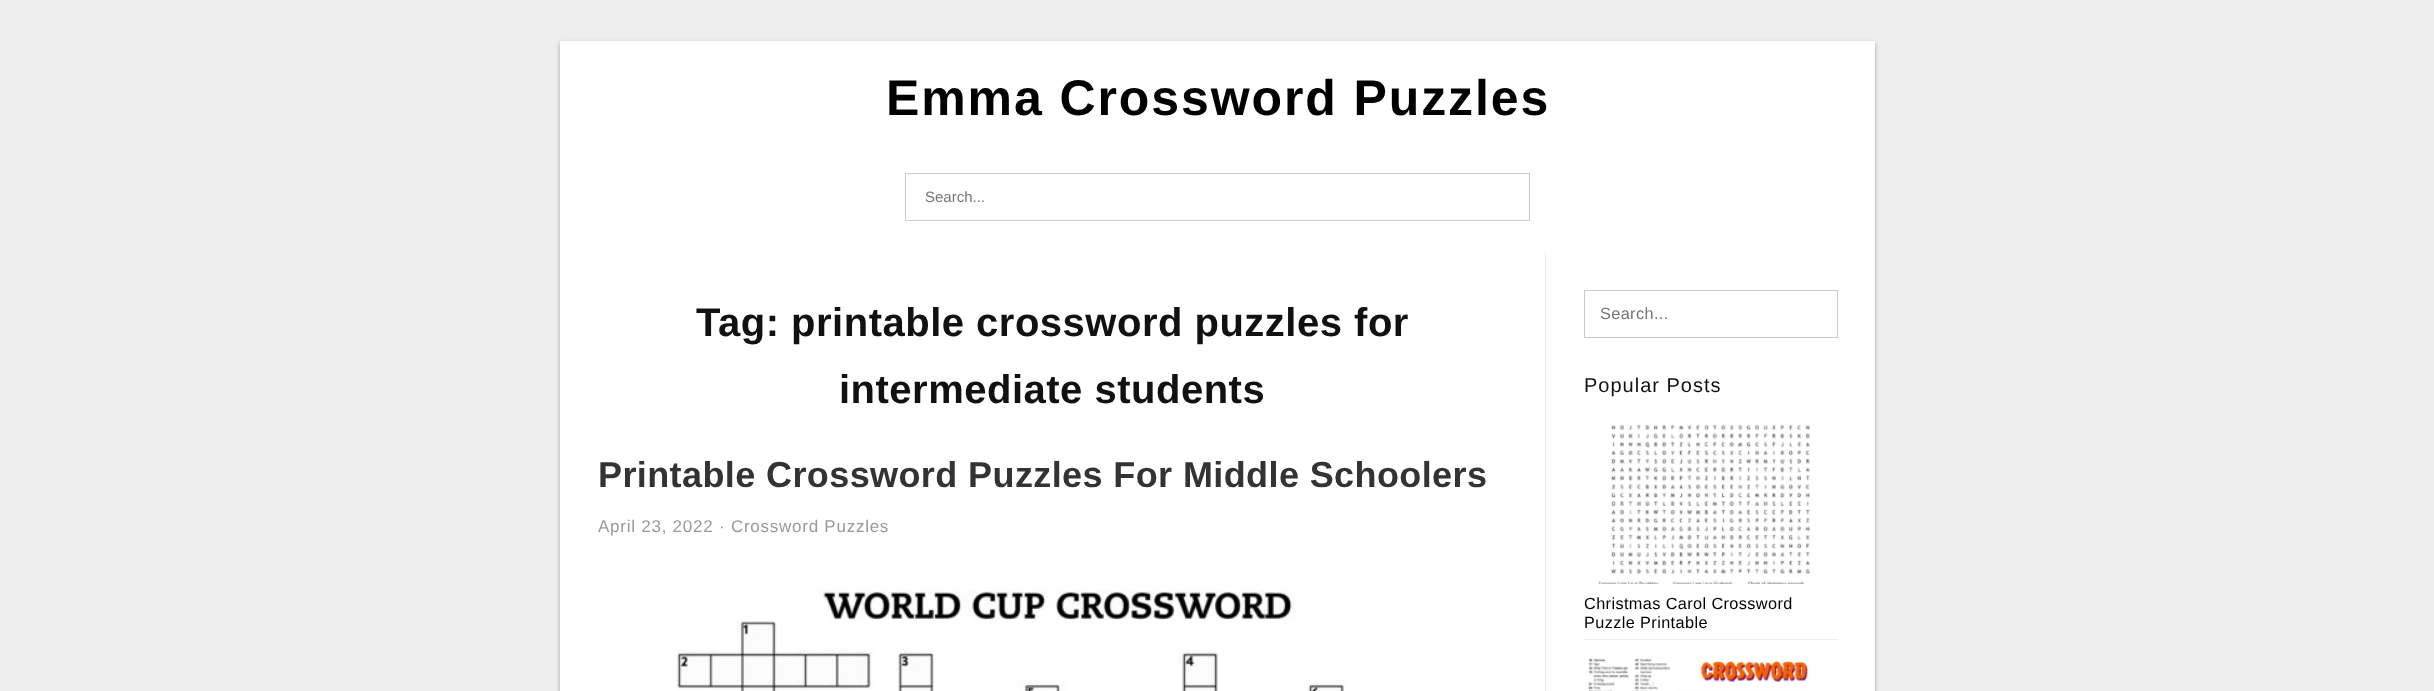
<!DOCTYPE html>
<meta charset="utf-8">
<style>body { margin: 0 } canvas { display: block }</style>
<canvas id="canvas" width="2434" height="691"></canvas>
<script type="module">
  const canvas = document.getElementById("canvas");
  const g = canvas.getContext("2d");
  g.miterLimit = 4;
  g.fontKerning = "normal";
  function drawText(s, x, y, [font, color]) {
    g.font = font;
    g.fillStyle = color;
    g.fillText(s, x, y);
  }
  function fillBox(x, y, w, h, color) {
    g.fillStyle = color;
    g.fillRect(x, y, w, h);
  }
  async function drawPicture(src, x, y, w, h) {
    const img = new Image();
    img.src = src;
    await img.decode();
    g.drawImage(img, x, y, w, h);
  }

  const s1 = ["bold 50px Liberation Sans", "#000000"];
  const s2 = ["15px Liberation Sans", "#757575"];
  const s3 = ["bold 40px Liberation Sans", "#111111"];
  const s4 = ["bold 36px Liberation Sans", "#333333"];
  const s5 = ["17px Liberation Sans", "#999999"];
  const s6 = ["16.25px Liberation Sans", "#757575"];
  const s7 = ["20px Liberation Sans", "#111111"];
  const s8 = ["16.25px Liberation Sans", "#000000"];

  fillBox(0, 0, 2434, 691, "#EEEEEE");
  g.fillStyle = "rgba(0, 0, 0, 0.3)";
  g.filter = "blur(2px)";
  g.beginPath();
  g.rect(560, 43, 1315, 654);
  g.fill();
  g.filter = "none";
  fillBox(560, 41, 1315, 650, "#FFFFFF");
  g.letterSpacing = "1.9px";
  drawText("Emma Crossword Puzzles", 886, 115, s1);
  g.strokeStyle = "#CCCCCC";
  g.strokeRect(905.5, 173.5, 624, 47);
  g.letterSpacing = "0px";
  drawText("Search...", 925, 202, s2);
  fillBox(1545, 253, 1, 438, "#E8E8E8");
  g.letterSpacing = "0.5px";
  drawText("Tag: printable crossword puzzles for", 696, 336, s3);
  drawText("intermediate students", 839, 403, s3);
  g.letterSpacing = "0.4px";
  drawText("Printable Crossword Puzzles For Middle Schoolers", 598, 487, s4);
  g.letterSpacing = "0.75px";
  drawText("April 23, 2022", 598, 532, s5);
  drawText("· Crossword Puzzles", 719, 532, s5);
  await drawPicture("pic1.png", 677, 590, 669, 101);
  g.strokeRect(1584.5, 290.5, 253, 47);
  g.letterSpacing = "0.4px";
  drawText("Search...", 1600, 319, s6);
  g.letterSpacing = "1px";
  drawText("Popular Posts", 1584, 392, s7);
  fillBox(1584, 639, 254, 1, "#EEEEEE");
  await drawPicture("pic2.png", 1598, 424, 212, 160);
  g.letterSpacing = "0.4px";
  drawText("Christmas Carol Crossword", 1584, 609, s8);
  drawText("Puzzle Printable", 1584, 628, s8);
  await drawPicture("pic3.png", 1588, 658, 221, 33);
</script>
